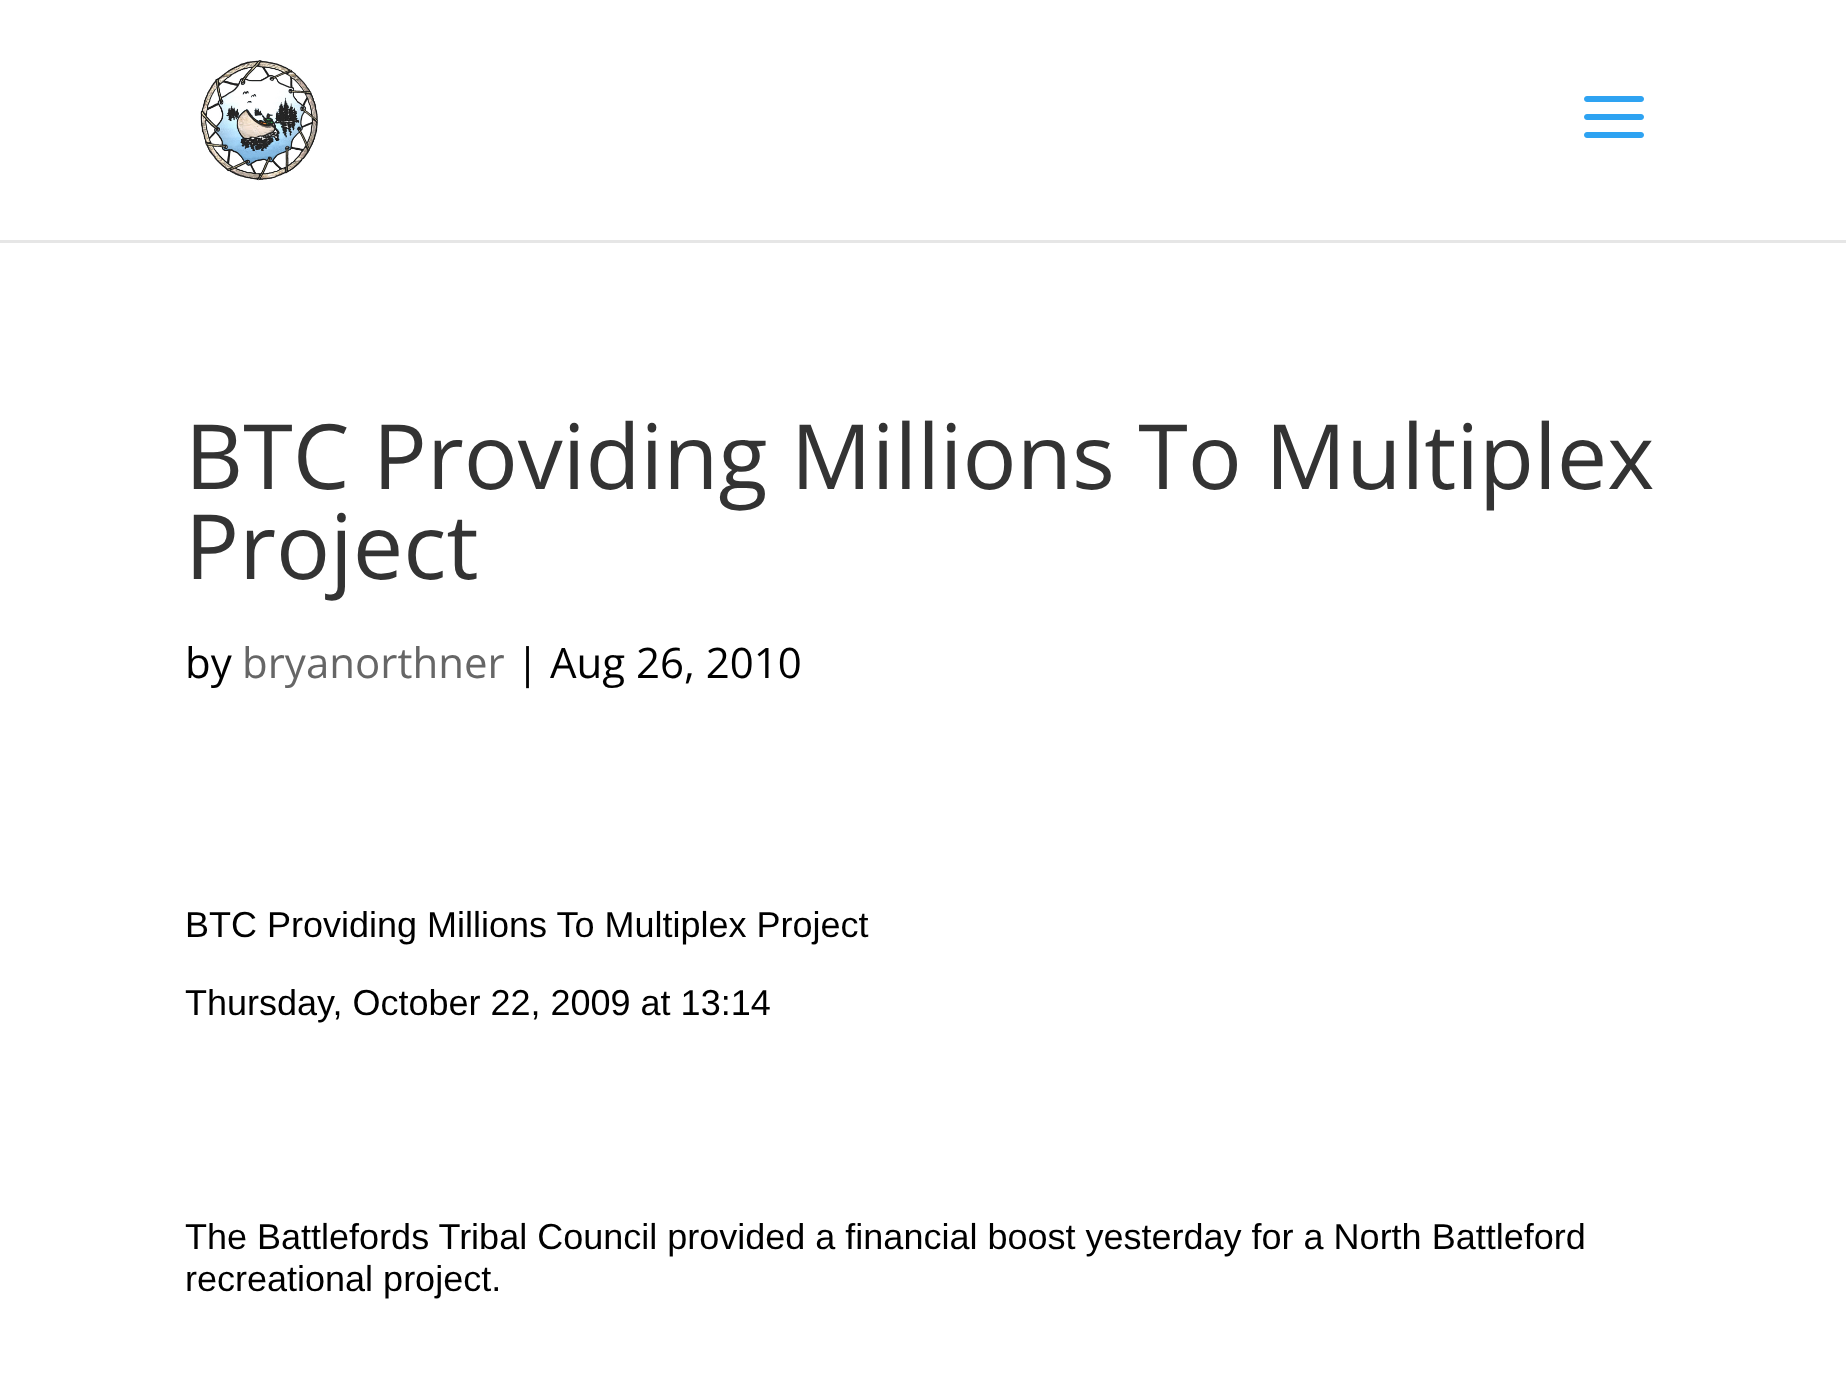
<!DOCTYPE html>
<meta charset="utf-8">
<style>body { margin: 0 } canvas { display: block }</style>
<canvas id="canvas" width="1846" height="1380"></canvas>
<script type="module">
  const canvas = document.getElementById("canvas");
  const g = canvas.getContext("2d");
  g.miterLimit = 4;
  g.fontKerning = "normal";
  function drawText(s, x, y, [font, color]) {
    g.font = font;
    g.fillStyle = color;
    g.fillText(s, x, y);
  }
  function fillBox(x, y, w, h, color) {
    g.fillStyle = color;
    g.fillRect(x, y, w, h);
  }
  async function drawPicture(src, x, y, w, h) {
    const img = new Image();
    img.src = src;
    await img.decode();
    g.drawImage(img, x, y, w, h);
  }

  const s1 = ["90px Open Sans", "#333333"];
  const s2 = ["42px Open Sans", "#000000"];
  const s3 = ["42px Open Sans", "#666666"];
  const s4 = ["36px Liberation Sans", "#000000"];

  fillBox(0, 0, 1846, 1380, "#FFFFFF");
  fillBox(0, 240, 1846, 3, "#E6E6E6");
  await drawPicture("pic1.png", 200, 60, 118, 121);
  await drawPicture("pic2.png", 1584, 96, 60, 42);
  drawText("BTC Providing Millions To Multiplex", 185, 489, s1);
  drawText("Project", 185, 579, s1);
  drawText("by", 185, 678, s2);
  drawText("bryanorthner", 242, 678, s3);
  drawText("| Aug 26, 2010", 516, 678, s2);
  drawText("BTC Providing Millions To Multiplex Project", 185, 937, s4);
  drawText("Thursday, October 22, 2009 at 13:14", 185, 1015, s4);
  drawText("The Battlefords Tribal Council provided a financial boost yesterday for a North Battleford", 185, 1249, s4);
  drawText("recreational project.", 185, 1291, s4);
</script>
